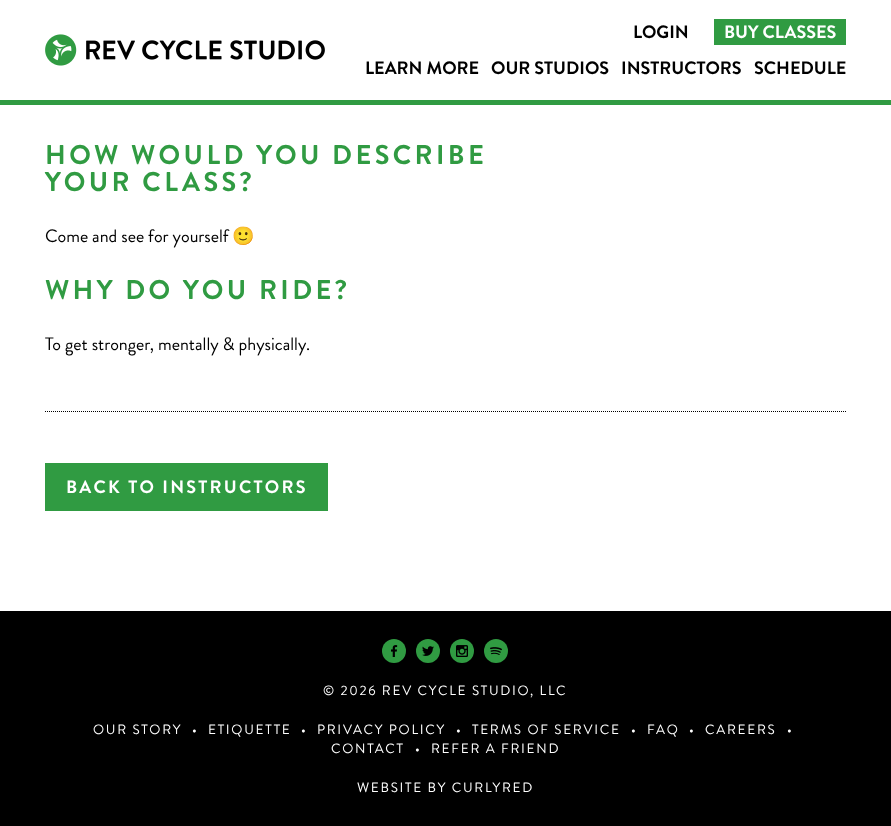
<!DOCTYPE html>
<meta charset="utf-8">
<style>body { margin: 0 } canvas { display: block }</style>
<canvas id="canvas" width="891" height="826"></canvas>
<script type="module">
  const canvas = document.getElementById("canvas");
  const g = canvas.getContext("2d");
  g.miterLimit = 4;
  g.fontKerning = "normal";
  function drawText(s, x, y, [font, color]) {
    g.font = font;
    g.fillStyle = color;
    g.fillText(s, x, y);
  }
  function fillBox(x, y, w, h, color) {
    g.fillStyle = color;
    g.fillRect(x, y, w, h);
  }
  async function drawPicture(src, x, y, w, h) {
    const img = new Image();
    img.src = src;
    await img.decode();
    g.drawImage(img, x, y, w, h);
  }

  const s1 = ["bold 18px Brandon Grotesque", "#000000"];
  const s2 = ["bold 18px Brandon Grotesque", "#FFFFFF"];
  const s3 = ["bold 27px Brandon Grotesque", "#309B42"];
  const s4 = ["18px Brandon Grotesque", "#000000"];
  const s5 = ["18px Noto Color Emoji", "#000000"];
  const s6 = ["13.5px Brandon Grotesque", "#FFFFFF"];

  fillBox(0, 0, 891, 826, "#FFFFFF");
  fillBox(0, 100, 891, 5, "#309B42");
  await drawPicture("pic1.png", 45, 34, 280, 32);
  drawText("LOGIN", 633, 38, s1);
  fillBox(714, 19, 132, 26, "#309B42");
  drawText("BUY CLASSES", 724, 38, s2);
  drawText("LEARN MORE", 365, 74, s1);
  drawText("OUR STUDIOS", 491, 74, s1);
  drawText("INSTRUCTORS", 621, 74, s1);
  drawText("SCHEDULE", 754, 74, s1);
  g.letterSpacing = "3.4px";
  drawText("HOW WOULD YOU DESCRIBE", 45, 164, s3);
  drawText("YOUR CLASS?", 45, 191, s3);
  g.letterSpacing = "0px";
  drawText("Come and see for yourself", 45, 242, s4);
  drawText("🙂", 232, 242, s5);
  g.letterSpacing = "3.4px";
  drawText("WHY DO YOU RIDE?", 45, 299, s3);
  g.letterSpacing = "0px";
  drawText("To get stronger, mentally & physically.", 45, 350, s4);
  g.beginPath();
  g.moveTo(45, 411.5);
  g.lineTo(846, 411.5);
  g.strokeStyle = "#000000";
  g.setLineDash([1, 1]);
  g.stroke();
  fillBox(45, 463, 283, 48, "#309B42");
  g.letterSpacing = "2.25px";
  drawText("BACK TO INSTRUCTORS", 66, 493, s2);
  fillBox(0, 611, 891, 215, "#000000");
  g.fillStyle = "#309B42";
  g.beginPath();
  g.arc(394, 651, 12, 0, Math.PI * 2);
  g.fill();
  await drawPicture("pic2.png", 391, 645, 7, 12);
  g.beginPath();
  g.arc(428, 651, 12, 0, Math.PI * 2);
  g.fill();
  await drawPicture("pic3.png", 422, 646, 12, 10);
  g.beginPath();
  g.arc(462, 651, 12, 0, Math.PI * 2);
  g.fill();
  await drawPicture("pic4.png", 456, 645, 12, 12);
  g.beginPath();
  g.arc(496, 651, 12, 0, Math.PI * 2);
  g.fill();
  await drawPicture("pic5.png", 490, 647, 12, 8);
  g.letterSpacing = "1.7px";
  drawText("© 2026 REV CYCLE STUDIO, LLC", 323, 695, s6);
  drawText("OUR STORY", 93, 734, s6);
  drawText("•", 192, 734, s6);
  drawText("ETIQUETTE", 208, 734, s6);
  drawText("•", 301, 734, s6);
  drawText("PRIVACY POLICY", 317, 734, s6);
  drawText("•", 456, 734, s6);
  drawText("TERMS OF SERVICE", 472, 734, s6);
  drawText("•", 631, 734, s6);
  drawText("FAQ", 647, 734, s6);
  drawText("•", 689, 734, s6);
  drawText("CAREERS", 705, 734, s6);
  drawText("•", 787, 734, s6);
  drawText("CONTACT", 331, 753, s6);
  drawText("•", 415, 753, s6);
  drawText("REFER A FRIEND", 431, 753, s6);
  drawText("WEBSITE BY CURLYRED", 357, 792, s6);
</script>
